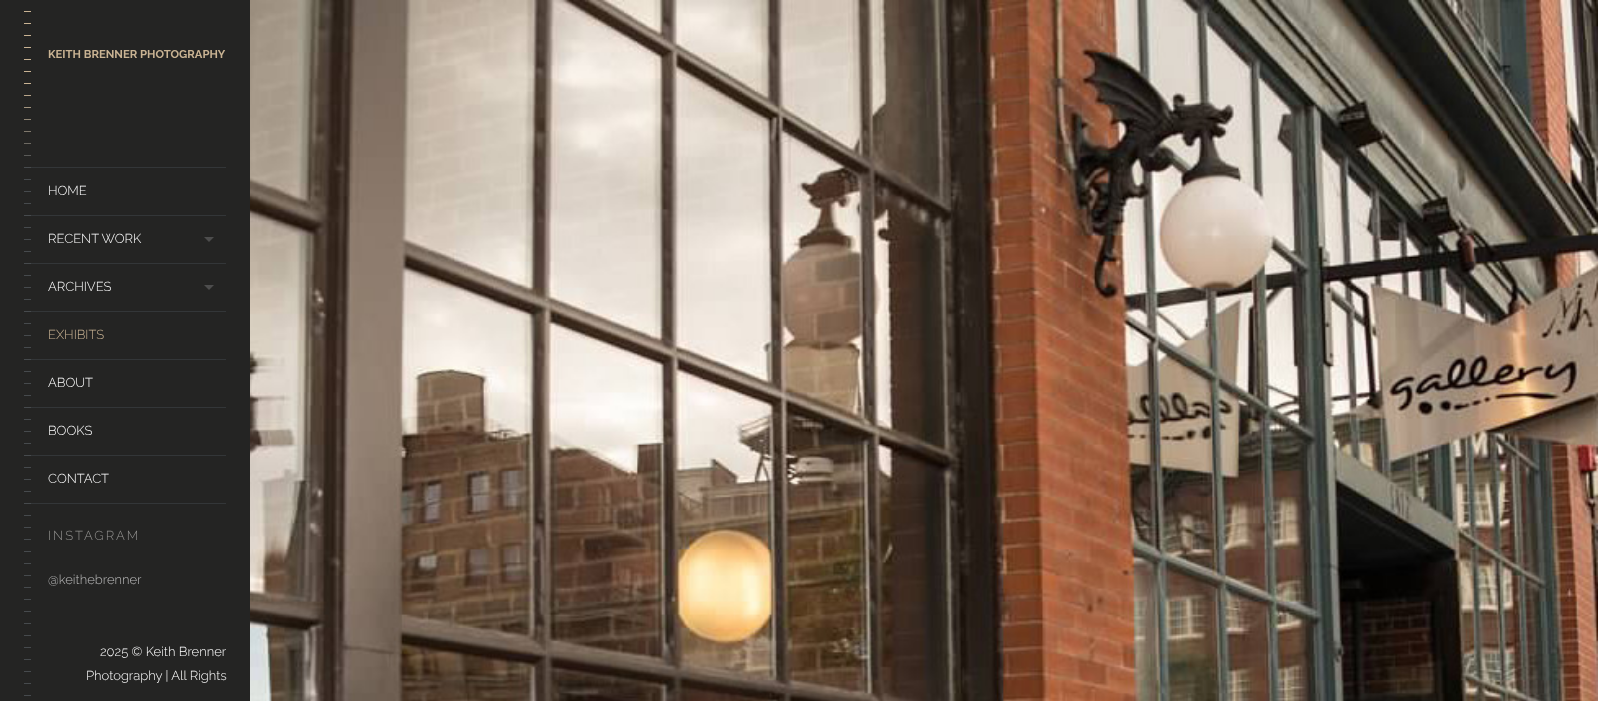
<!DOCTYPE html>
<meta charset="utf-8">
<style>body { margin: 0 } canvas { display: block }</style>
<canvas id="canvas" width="1598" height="701"></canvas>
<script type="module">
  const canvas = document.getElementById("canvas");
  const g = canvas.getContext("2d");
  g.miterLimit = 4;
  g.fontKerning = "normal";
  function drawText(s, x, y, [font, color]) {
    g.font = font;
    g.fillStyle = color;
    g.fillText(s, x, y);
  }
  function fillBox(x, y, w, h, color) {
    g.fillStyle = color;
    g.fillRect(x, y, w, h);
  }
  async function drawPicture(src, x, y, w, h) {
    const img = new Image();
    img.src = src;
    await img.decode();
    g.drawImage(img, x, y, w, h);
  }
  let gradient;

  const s1 = ["bold 11.3px Raleway", "#C9B393"];
  const s2 = ["300 13px Raleway", "#FFFFFF"];
  const s3 = ["300 13px Raleway", "#C9B393"];
  const s4 = ["300 13px Raleway", "#91908E"];
  const s5 = ["300 13px Raleway", "#BBBBBB"];

  fillBox(0, 0, 1598, 701, "#FFFFFF");
  fillBox(0, 0, 250, 701, "#242423");
  fillBox(24, 215, 202, 1, "#333638");
  fillBox(24, 263, 202, 1, "#333638");
  fillBox(24, 311, 202, 1, "#333638");
  fillBox(24, 359, 202, 1, "#333638");
  fillBox(24, 407, 202, 1, "#333638");
  fillBox(24, 455, 202, 1, "#333638");
  fillBox(24, 503, 202, 1, "#333638");
  fillBox(24, 179, 7, 522, "#464A4D");
  fillBox(24, 167, 202, 1, "#333638");
  gradient = g.createLinearGradient(24, 0, 25, 168);
  gradient.addColorStop(0.5, "#C9B393");
  gradient.addColorStop(1, "#464A4D");
  g.fillStyle = gradient;
  g.fillRect(24, 11, 7, 157);
  await drawPicture("pic1.png", 24, 0, 7, 701);
  drawText("KEITH BRENNER PHOTOGRAPHY", 48, 58, s1);
  drawText("HOME", 48, 195, s2);
  drawText("RECENT WORK", 48, 243, s2);
  g.fillStyle = "#4D4D4D";
  g.beginPath();
  g.moveTo(204, 237);
  g.lineTo(214, 237);
  g.lineTo(209, 242);
  g.closePath();
  g.fill();
  drawText("ARCHIVES", 48, 291, s2);
  g.fillStyle = "#4D4D4D";
  g.beginPath();
  g.moveTo(204, 285);
  g.lineTo(214, 285);
  g.lineTo(209, 290);
  g.closePath();
  g.fill();
  drawText("EXHIBITS", 48, 339, s3);
  drawText("ABOUT", 48, 387, s2);
  drawText("BOOKS", 48, 435, s2);
  drawText("CONTACT", 48, 483, s2);
  g.letterSpacing = "2px";
  drawText("INSTAGRAM", 48, 540, s4);
  g.letterSpacing = "0px";
  drawText("@keithebrenner", 48, 584, s5);
  drawText("2025 © Keith Brenner", 100, 656, s2);
  drawText("Photography | All Rights", 86, 680, s2);
  await drawPicture("pic2.png", 250, 0, 1348, 701);
</script>
